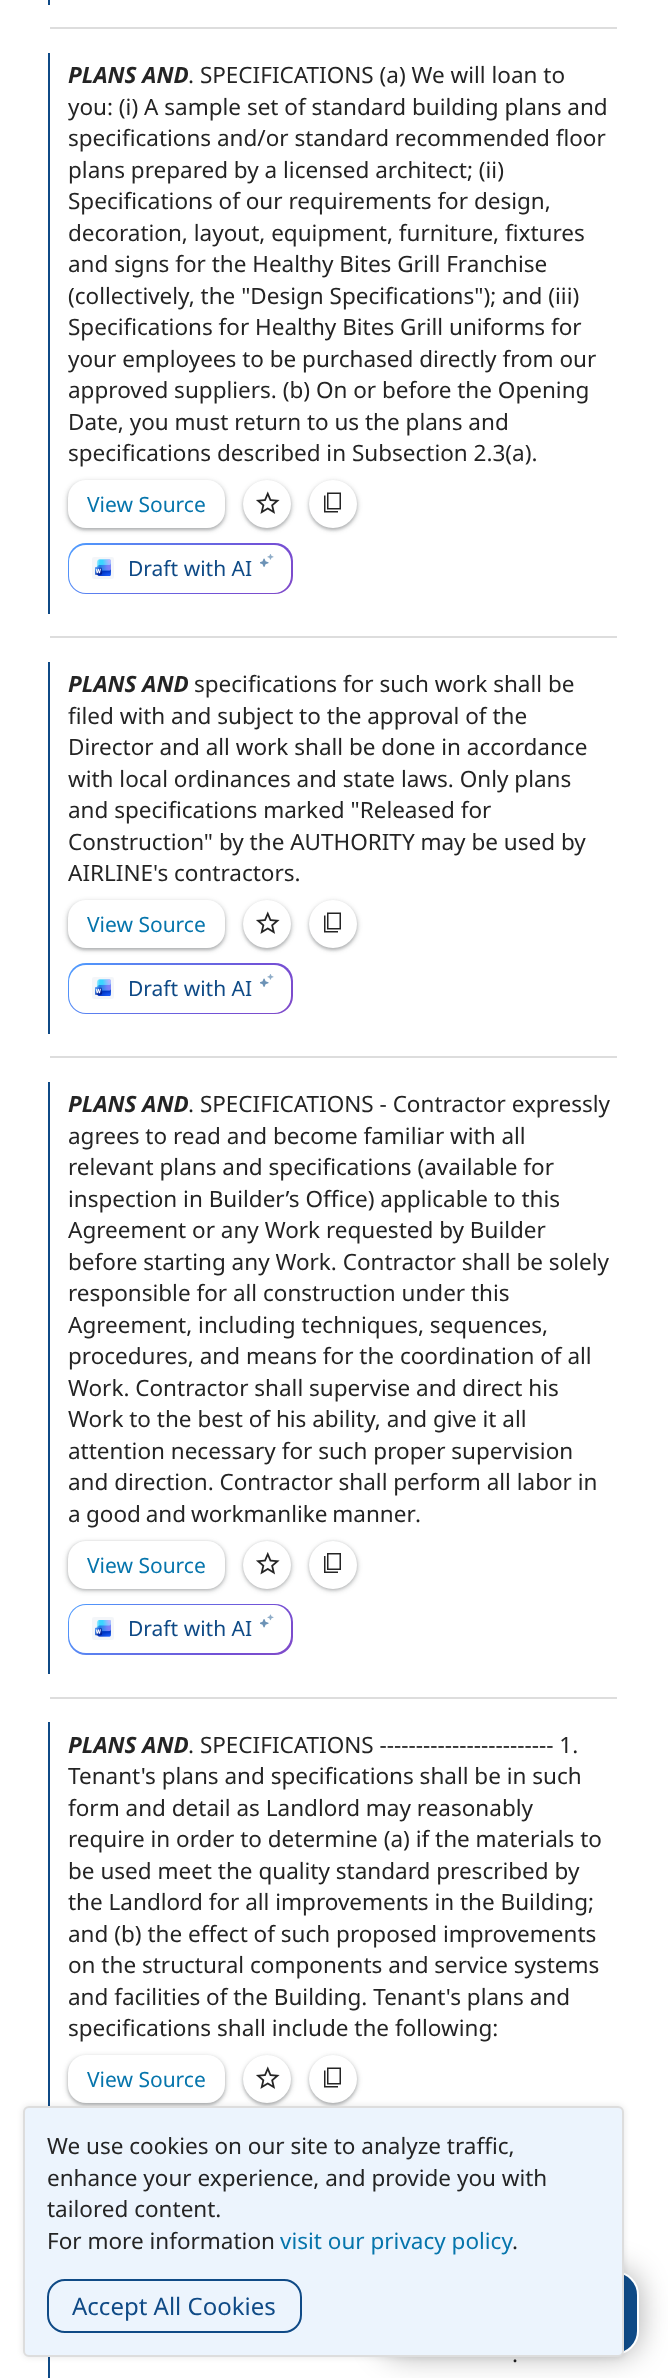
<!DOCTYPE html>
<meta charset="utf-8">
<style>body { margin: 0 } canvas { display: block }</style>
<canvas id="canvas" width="668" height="2378"></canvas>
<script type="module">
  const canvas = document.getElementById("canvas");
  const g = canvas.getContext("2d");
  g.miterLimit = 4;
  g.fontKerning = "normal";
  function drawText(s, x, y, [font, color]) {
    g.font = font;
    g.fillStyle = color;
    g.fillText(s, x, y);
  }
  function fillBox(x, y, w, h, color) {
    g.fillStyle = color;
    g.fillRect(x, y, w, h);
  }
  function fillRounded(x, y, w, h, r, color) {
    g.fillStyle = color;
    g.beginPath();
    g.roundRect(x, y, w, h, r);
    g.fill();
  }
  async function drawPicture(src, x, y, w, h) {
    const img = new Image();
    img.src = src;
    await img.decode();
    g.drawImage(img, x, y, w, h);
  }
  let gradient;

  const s1 = ["italic bold 22.5px Noto Sans", "#242424"];
  const s2 = ["22.5px Noto Sans", "#242424"];
  const s3 = ["21px Noto Sans", "#0675AC"];
  const s4 = ["21px Noto Sans", "#0F4A86"];
  const s5 = ["22.5px Noto Sans", "#0675AC"];
  const s6 = ["24px Noto Sans", "#0F4A86"];

  fillBox(0, 0, 668, 2378, "#FFFFFF");
  fillBox(48, 0, 2, 5, "#0F4A86");
  fillBox(50, 27, 567, 2, "#DDDDDD");
  fillBox(48, 53, 2, 561, "#0F4A86");
  drawText("PLANS AND", 68, 83, s1);
  drawText(". SPECIFICATIONS (a) We will loan to", 188, 83, s2);
  drawText("you: (i) A sample set of standard building plans and", 68, 115, s2);
  drawText("specifications and/or standard recommended floor", 68, 146, s2);
  drawText("plans prepared by a licensed architect; (ii)", 68, 178, s2);
  drawText("Specifications of our requirements for design,", 68, 209, s2);
  drawText("decoration, layout, equipment, furniture, fixtures", 68, 241, s2);
  drawText("and signs for the Healthy Bites Grill Franchise", 68, 272, s2);
  drawText("(collectively, the \"Design Specifications\"); and (iii)", 68, 304, s2);
  drawText("Specifications for Healthy Bites Grill uniforms for", 68, 335, s2);
  drawText("your employees to be purchased directly from our", 68, 367, s2);
  drawText("approved suppliers. (b) On or before the Opening", 68, 398, s2);
  drawText("Date, you must return to us the plans and", 68, 430, s2);
  drawText("specifications described in Subsection 2.3(a).", 68, 461, s2);
  g.fillStyle = "rgba(60, 64, 67, 0.15)";
  g.filter = "blur(2px)";
  g.beginPath();
  g.roundRect(66, 480, 161, 51, 20);
  g.fill();
  g.filter = "none";
  g.fillStyle = "rgba(60, 64, 67, 0.3)";
  g.filter = "blur(1.5px)";
  g.beginPath();
  g.roundRect(68, 482, 157, 48, 18);
  g.fill();
  g.filter = "none";
  fillRounded(68, 480, 157, 48, 18, "#FFFFFF");
  drawText("View Source", 87, 512, s3);
  g.fillStyle = "rgba(60, 64, 67, 0.15)";
  g.filter = "blur(2px)";
  g.beginPath();
  g.roundRect(242, 480, 51, 51, 25.5);
  g.fill();
  g.filter = "none";
  g.fillStyle = "rgba(60, 64, 67, 0.3)";
  g.filter = "blur(1.5px)";
  g.beginPath();
  g.roundRect(243, 482, 48, 48, 24);
  g.fill();
  g.filter = "none";
  g.fillStyle = "#FFFFFF";
  g.beginPath();
  g.arc(267, 504, 24, 0, Math.PI * 2);
  g.fill();
  await drawPicture("pic1.png", 256, 491, 24, 23);
  g.fillStyle = "rgba(60, 64, 67, 0.15)";
  g.filter = "blur(2px)";
  g.beginPath();
  g.roundRect(308, 480, 51, 51, 25.5);
  g.fill();
  g.filter = "none";
  g.fillStyle = "rgba(60, 64, 67, 0.3)";
  g.filter = "blur(1.5px)";
  g.beginPath();
  g.roundRect(309, 482, 48, 48, 24);
  g.fill();
  g.filter = "none";
  g.fillStyle = "#FFFFFF";
  g.beginPath();
  g.arc(333, 504, 24, 0, Math.PI * 2);
  g.fill();
  await drawPicture("pic2.png", 324, 492, 17, 21);
  gradient = g.createLinearGradient(416, 195, 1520, 1299);
  gradient.addColorStop(0, "#4D9DFF");
  gradient.addColorStop(0.09, "#7251D7");
  gradient.addColorStop(0.2, "#9E3CA8");
  gradient.addColorStop(0.29, "#B01983");
  gradient.addColorStop(0.36, "#9E3CA8");
  gradient.addColorStop(0.44, "#7251D7");
  gradient.addColorStop(0.55, "#4D9DFF");
  gradient.addColorStop(0.65, "#7251D7");
  gradient.addColorStop(0.76, "#B01983");
  gradient.addColorStop(0.84, "#9E3CA8");
  gradient.addColorStop(0.96, "#7251D7");
  g.fillStyle = gradient;
  g.beginPath();
  g.roundRect(68, 543, 225, 51, 18);
  g.fill();
  fillRounded(69, 545, 222, 48, 17, "#FFFFFF");
  await drawPicture("pic3.png", 92, 557, 22, 22);
  drawText("Draft with AI", 128, 576, s4);
  await drawPicture("pic4.png", 260, 554, 14, 13);
  fillBox(50, 636, 567, 2, "#DDDDDD");
  fillBox(48, 662, 2, 372, "#0F4A86");
  drawText("PLANS AND", 68, 692, s1);
  drawText("specifications for such work shall be", 194, 692, s2);
  drawText("filed with and subject to the approval of the", 68, 724, s2);
  drawText("Director and all work shall be done in accordance", 68, 755, s2);
  drawText("with local ordinances and state laws. Only plans", 68, 787, s2);
  drawText("and specifications marked \"Released for", 68, 818, s2);
  drawText("Construction\" by the AUTHORITY may be used by", 68, 850, s2);
  drawText("AIRLINE's contractors.", 68, 881, s2);
  g.fillStyle = "rgba(60, 64, 67, 0.15)";
  g.filter = "blur(2px)";
  g.beginPath();
  g.roundRect(66, 900, 161, 51, 20);
  g.fill();
  g.filter = "none";
  g.fillStyle = "rgba(60, 64, 67, 0.3)";
  g.filter = "blur(1.5px)";
  g.beginPath();
  g.roundRect(68, 902, 157, 48, 18);
  g.fill();
  g.filter = "none";
  fillRounded(68, 900, 157, 48, 18, "#FFFFFF");
  drawText("View Source", 87, 932, s3);
  g.fillStyle = "rgba(60, 64, 67, 0.15)";
  g.filter = "blur(2px)";
  g.beginPath();
  g.roundRect(242, 900, 51, 51, 25.5);
  g.fill();
  g.filter = "none";
  g.fillStyle = "rgba(60, 64, 67, 0.3)";
  g.filter = "blur(1.5px)";
  g.beginPath();
  g.roundRect(243, 902, 48, 48, 24);
  g.fill();
  g.filter = "none";
  g.fillStyle = "#FFFFFF";
  g.beginPath();
  g.arc(267, 924, 24, 0, Math.PI * 2);
  g.fill();
  await drawPicture("pic1.png", 256, 911, 24, 23);
  g.fillStyle = "rgba(60, 64, 67, 0.15)";
  g.filter = "blur(2px)";
  g.beginPath();
  g.roundRect(308, 900, 51, 51, 25.5);
  g.fill();
  g.filter = "none";
  g.fillStyle = "rgba(60, 64, 67, 0.3)";
  g.filter = "blur(1.5px)";
  g.beginPath();
  g.roundRect(309, 902, 48, 48, 24);
  g.fill();
  g.filter = "none";
  g.fillStyle = "#FFFFFF";
  g.beginPath();
  g.arc(333, 924, 24, 0, Math.PI * 2);
  g.fill();
  await drawPicture("pic2.png", 324, 912, 17, 21);
  gradient = g.createLinearGradient(416, 615, 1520, 1719);
  gradient.addColorStop(0, "#4D9DFF");
  gradient.addColorStop(0.09, "#7251D7");
  gradient.addColorStop(0.2, "#9E3CA8");
  gradient.addColorStop(0.29, "#B01983");
  gradient.addColorStop(0.36, "#9E3CA8");
  gradient.addColorStop(0.44, "#7251D7");
  gradient.addColorStop(0.55, "#4D9DFF");
  gradient.addColorStop(0.65, "#7251D7");
  gradient.addColorStop(0.76, "#B01983");
  gradient.addColorStop(0.84, "#9E3CA8");
  gradient.addColorStop(0.96, "#7251D7");
  g.fillStyle = gradient;
  g.beginPath();
  g.roundRect(68, 963, 225, 51, 18);
  g.fill();
  fillRounded(69, 965, 222, 48, 17, "#FFFFFF");
  await drawPicture("pic3.png", 92, 977, 22, 22);
  drawText("Draft with AI", 128, 996, s4);
  await drawPicture("pic4.png", 260, 974, 14, 13);
  fillBox(50, 1056, 567, 2, "#DDDDDD");
  fillBox(48, 1082, 2, 592, "#0F4A86");
  drawText("PLANS AND", 68, 1112, s1);
  drawText(". SPECIFICATIONS - Contractor expressly", 188, 1112, s2);
  drawText("agrees to read and become familiar with all", 68, 1144, s2);
  drawText("relevant plans and specifications (available for", 68, 1175, s2);
  drawText("inspection in Builder’s Office) applicable to this", 68, 1207, s2);
  drawText("Agreement or any Work requested by Builder", 68, 1238, s2);
  drawText("before starting any Work. Contractor shall be solely", 68, 1270, s2);
  drawText("responsible for all construction under this", 68, 1301, s2);
  drawText("Agreement, including techniques, sequences,", 68, 1333, s2);
  drawText("procedures, and means for the coordination of all", 68, 1364, s2);
  drawText("Work. Contractor shall supervise and direct his", 68, 1396, s2);
  drawText("Work to the best of his ability, and give it all", 68, 1427, s2);
  drawText("attention necessary for such proper supervision", 68, 1459, s2);
  drawText("and direction. Contractor shall perform all labor in", 68, 1490, s2);
  drawText("a", 68, 1522, s2);
  g.wordSpacing = "-1px";
  drawText("good and workmanlike manner", 86, 1522, s2);
  g.wordSpacing = "0px";
  drawText(".", 415, 1522, s2);
  g.fillStyle = "rgba(60, 64, 67, 0.15)";
  g.filter = "blur(2px)";
  g.beginPath();
  g.roundRect(66, 1541, 161, 51, 20);
  g.fill();
  g.filter = "none";
  g.fillStyle = "rgba(60, 64, 67, 0.3)";
  g.filter = "blur(1.5px)";
  g.beginPath();
  g.roundRect(68, 1542, 157, 48, 18);
  g.fill();
  g.filter = "none";
  fillRounded(68, 1541, 157, 48, 18, "#FFFFFF");
  drawText("View Source", 87, 1573, s3);
  g.fillStyle = "rgba(60, 64, 67, 0.15)";
  g.filter = "blur(2px)";
  g.beginPath();
  g.roundRect(242, 1541, 51, 51, 25.5);
  g.fill();
  g.filter = "none";
  g.fillStyle = "rgba(60, 64, 67, 0.3)";
  g.filter = "blur(1.5px)";
  g.beginPath();
  g.roundRect(243, 1542, 48, 48, 24);
  g.fill();
  g.filter = "none";
  g.fillStyle = "#FFFFFF";
  g.beginPath();
  g.arc(267, 1565, 24, 0, Math.PI * 2);
  g.fill();
  await drawPicture("pic5.png", 256, 1552, 24, 23);
  g.fillStyle = "rgba(60, 64, 67, 0.15)";
  g.filter = "blur(2px)";
  g.beginPath();
  g.roundRect(308, 1541, 51, 51, 25.5);
  g.fill();
  g.filter = "none";
  g.fillStyle = "rgba(60, 64, 67, 0.3)";
  g.filter = "blur(1.5px)";
  g.beginPath();
  g.roundRect(309, 1542, 48, 48, 24);
  g.fill();
  g.filter = "none";
  g.fillStyle = "#FFFFFF";
  g.beginPath();
  g.arc(333, 1565, 24, 0, Math.PI * 2);
  g.fill();
  await drawPicture("pic6.png", 324, 1553, 17, 20);
  gradient = g.createLinearGradient(416, 1256, 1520, 2360);
  gradient.addColorStop(0, "#4D9DFF");
  gradient.addColorStop(0.09, "#7251D7");
  gradient.addColorStop(0.2, "#9E3CA8");
  gradient.addColorStop(0.29, "#B01983");
  gradient.addColorStop(0.36, "#9E3CA8");
  gradient.addColorStop(0.44, "#7251D7");
  gradient.addColorStop(0.55, "#4D9DFF");
  gradient.addColorStop(0.65, "#7251D7");
  gradient.addColorStop(0.76, "#B01983");
  gradient.addColorStop(0.84, "#9E3CA8");
  gradient.addColorStop(0.96, "#7251D7");
  g.fillStyle = gradient;
  g.beginPath();
  g.roundRect(68, 1604, 225, 51, 18);
  g.fill();
  fillRounded(69, 1605, 222, 48, 17, "#FFFFFF");
  await drawPicture("pic7.png", 92, 1617, 22, 23);
  drawText("Draft with AI", 128, 1636, s4);
  await drawPicture("pic8.png", 260, 1614, 14, 14);
  fillBox(50, 1697, 567, 2, "#DDDDDD");
  fillBox(48, 1722, 2, 384, "#0F4A86");
  drawText("PLANS AND", 68, 1753, s1);
  drawText(". SPECIFICATIONS ------------------------ 1.", 188, 1753, s2);
  drawText("Tenant's plans and specifications shall be in such", 68, 1784, s2);
  drawText("form and detail as Landlord may reasonably", 68, 1816, s2);
  drawText("require in order to determine (a) if the materials to", 68, 1847, s2);
  drawText("be used meet the quality standard prescribed by", 68, 1879, s2);
  drawText("the Landlord for all improvements in the Building;", 68, 1910, s2);
  drawText("and (b) the effect of such proposed improvements", 68, 1942, s2);
  drawText("on the structural components and service systems", 68, 1973, s2);
  drawText("and facilities of the Building. Tenant's plans and", 68, 2005, s2);
  drawText("specifications shall include the following:", 68, 2036, s2);
  g.fillStyle = "rgba(60, 64, 67, 0.15)";
  g.filter = "blur(2px)";
  g.beginPath();
  g.roundRect(66, 2055, 161, 51, 20);
  g.fill();
  g.filter = "none";
  g.fillStyle = "rgba(60, 64, 67, 0.3)";
  g.filter = "blur(1.5px)";
  g.beginPath();
  g.roundRect(68, 2057, 157, 48, 18);
  g.fill();
  g.filter = "none";
  fillRounded(68, 2055, 157, 48, 18, "#FFFFFF");
  drawText("View Source", 87, 2087, s3);
  g.fillStyle = "rgba(60, 64, 67, 0.15)";
  g.filter = "blur(2px)";
  g.beginPath();
  g.roundRect(242, 2055, 51, 51, 25.5);
  g.fill();
  g.filter = "none";
  g.fillStyle = "rgba(60, 64, 67, 0.3)";
  g.filter = "blur(1.5px)";
  g.beginPath();
  g.roundRect(243, 2057, 48, 48, 24);
  g.fill();
  g.filter = "none";
  g.fillStyle = "#FFFFFF";
  g.beginPath();
  g.arc(267, 2079, 24, 0, Math.PI * 2);
  g.fill();
  await drawPicture("pic1.png", 256, 2066, 24, 23);
  g.fillStyle = "rgba(60, 64, 67, 0.15)";
  g.filter = "blur(2px)";
  g.beginPath();
  g.roundRect(308, 2055, 51, 51, 25.5);
  g.fill();
  g.filter = "none";
  g.fillStyle = "rgba(60, 64, 67, 0.3)";
  g.filter = "blur(1.5px)";
  g.beginPath();
  g.roundRect(309, 2057, 48, 48, 24);
  g.fill();
  g.filter = "none";
  g.fillStyle = "#FFFFFF";
  g.beginPath();
  g.arc(333, 2079, 24, 0, Math.PI * 2);
  g.fill();
  await drawPicture("pic2.png", 324, 2067, 17, 21);
  fillBox(48, 2357, 2, 21, "#0F4A86");
  drawText(".", 512, 2362, s2);
  g.fillStyle = "rgba(0, 0, 0, 0.33)";
  g.filter = "blur(15px)";
  g.beginPath();
  g.roundRect(380, 2271, 259, 84, 24);
  g.fill();
  g.filter = "none";
  g.fillStyle = "#0F4A86";
  g.beginPath();
  g.roundRect(381, 2272, 257, 82, 23);
  g.fill();
  g.strokeStyle = "#FFFFFF";
  g.lineWidth = 2;
  g.stroke();
  g.fillStyle = "rgba(0, 0, 0, 0.1)";
  g.filter = "blur(3px)";
  g.beginPath();
  g.roundRect(23, 2106, 601, 251, 6);
  g.fill();
  g.filter = "none";
  g.fillStyle = "#ECF4FD";
  g.beginPath();
  g.roundRect(24, 2107, 599, 249, 5);
  g.fill();
  g.strokeStyle = "#DDDDDD";
  g.stroke();
  drawText("We use cookies on our site to analyze traffic,", 47, 2154, s2);
  drawText("enhance your experience, and provide you with", 47, 2186, s2);
  drawText("tailored content.", 47, 2217, s2);
  drawText("For more information", 47, 2249, s2);
  drawText("visit our privacy policy", 280, 2249, s5);
  drawText(".", 512, 2249, s2);
  g.beginPath();
  g.roundRect(48, 2280, 253, 52, 17);
  g.strokeStyle = "#0F4A86";
  g.stroke();
  drawText("Accept All Cookies", 72, 2315, s6);
</script>
